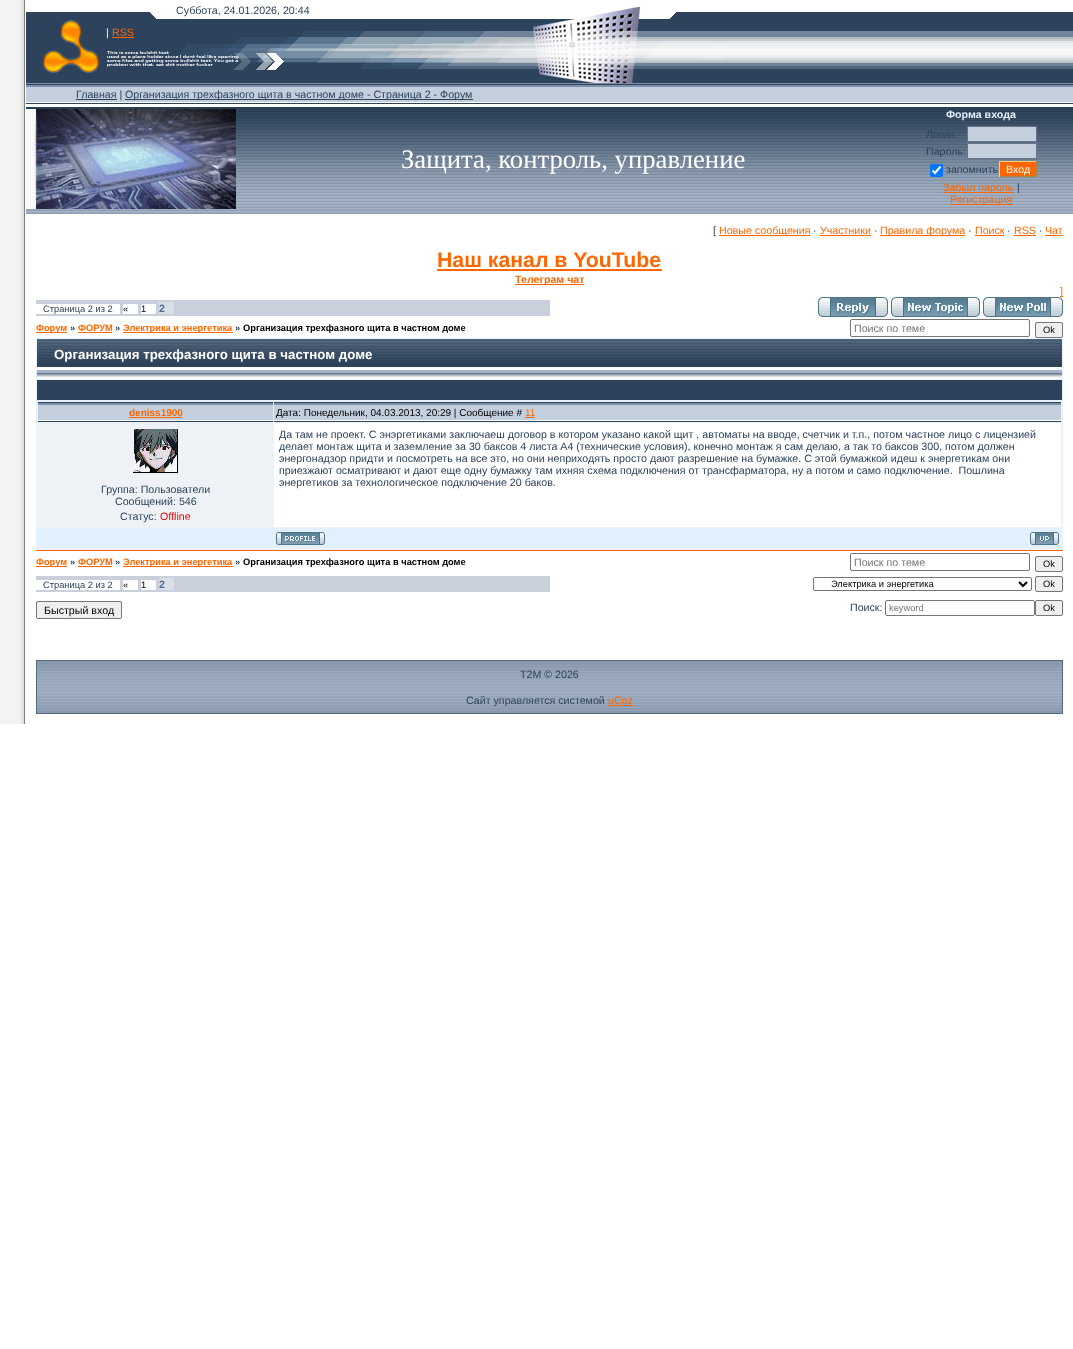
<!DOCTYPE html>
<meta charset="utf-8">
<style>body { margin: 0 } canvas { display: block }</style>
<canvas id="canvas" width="1073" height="1349"></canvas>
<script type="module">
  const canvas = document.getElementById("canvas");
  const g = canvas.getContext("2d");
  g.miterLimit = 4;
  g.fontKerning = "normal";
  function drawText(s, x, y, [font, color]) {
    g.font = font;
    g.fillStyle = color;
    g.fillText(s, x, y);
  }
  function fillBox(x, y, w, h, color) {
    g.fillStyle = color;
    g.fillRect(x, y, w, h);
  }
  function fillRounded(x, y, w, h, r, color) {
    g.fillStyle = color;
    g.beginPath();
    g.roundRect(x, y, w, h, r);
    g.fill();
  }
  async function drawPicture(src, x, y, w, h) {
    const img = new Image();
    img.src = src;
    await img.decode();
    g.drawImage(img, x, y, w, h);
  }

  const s1 = ["10.67px Liberation Sans", "#2D435B"];
  const s2 = ["10.67px Liberation Sans", "#FFFFFF"];
  const s3 = ["10.67px Liberation Sans", "#FF6600"];
  const s4 = ["26.7px Liberation Serif", "#FFFFFF"];
  const s5 = ["bold 10.67px Liberation Sans", "#E2EFFF"];
  const s6 = ["bold 21.25px Liberation Sans", "#FF6600"];
  const s7 = ["bold 10.67px Liberation Sans", "#FF6600"];
  const s8 = ["9.3px Liberation Sans", "#2D435B"];
  const s9 = ["9.3px Liberation Sans", "#000000"];
  const s10 = ["bold 10.67px Liberation Sans", "#4D6D91"];
  const s11 = ["bold 9.3px Liberation Sans", "#FF6600"];
  const s12 = ["bold 9.3px Liberation Sans", "#2D435B"];
  const s13 = ["bold 9.3px Liberation Sans", "#000000"];
  const s14 = ["10.67px Liberation Sans", "#757575"];
  const s15 = ["bold 13.3px Liberation Sans", "#FFFFFF"];
  const s16 = ["bold 10px Liberation Sans", "#FF6600"];
  const s17 = ["10px Liberation Sans", "#000000"];
  const s18 = ["10px Liberation Sans", "#FF6600"];
  const s19 = ["10.67px Liberation Sans", "#FF0000"];
  const s20 = ["10.67px Liberation Sans", "#000000"];
  const s21 = ["9.3px Liberation Sans", "#757575"];

  fillBox(0, 0, 1073, 1349, "#FFFFFF");
  await drawPicture("pic1.png", 0, 0, 25, 724);
  await drawPicture("pic2.png", 26, 12, 1047, 72);
  await drawPicture("pic3.png", 150, 7, 526, 12);
  drawText("Суббота, 24.01.2026, 20:44", 176, 14, s1);
  await drawPicture("pic4.png", 26, 19, 698, 65);
  drawText("|", 106, 36, s2);
  drawText("RSS", 112, 36, s3);
  fillBox(112, 37, 22, 1, "#FF6600");
  await drawPicture("pic5.png", 26, 84, 1047, 20);
  fillBox(76, 99, 41, 1, "#2D435B");
  drawText("Главная |", 76, 98, s1);
  fillBox(125, 99, 348, 1, "#2D435B");
  drawText("Организация трехфазного щита в частном доме - Страница 2 - Форум", 125, 98, s1);
  await drawPicture("pic6.png", 26, 104, 1047, 110);
  await drawPicture("pic7.png", 26, 109, 210, 100);
  drawText("Защита, контроль, управление", 401, 168, s4);
  drawText("Форма входа", 946, 118, s5);
  drawText("Логин:", 926, 138, s1);
  g.fillStyle = "#C4CFDD";
  g.beginPath();
  g.rect(967.5, 126.5, 69, 15);
  g.fill();
  g.strokeStyle = "#66758C";
  g.stroke();
  drawText("Пароль:", 926, 155, s1);
  g.fillStyle = "#C4CFDD";
  g.beginPath();
  g.rect(967.5, 143.5, 69, 15);
  g.fill();
  g.stroke();
  fillRounded(930, 164, 13, 13, 2, "#0075FF");
  g.beginPath();
  g.moveTo(932.5, 170.5);
  g.lineTo(935, 173);
  g.lineTo(940.5, 166.5);
  g.strokeStyle = "#FFFFFF";
  g.lineWidth = 2.1;
  g.stroke();
  drawText("запомнить", 946, 173, s1);
  fillBox(1000, 162, 36, 14, "#FF6600");
  fillBox(999, 161, 38, 1, "#FFCC66");
  fillBox(1036, 161, 1, 16, "#AA8844");
  fillBox(999, 176, 38, 1, "#AA8844");
  fillBox(999, 161, 1, 16, "#FFCC66");
  drawText("Вход", 1006, 173, s2);
  fillBox(943, 192, 71, 1, "#FF6600");
  drawText("Забыл пароль", 943, 191, s3);
  drawText("|", 1017, 191, s1);
  fillBox(950, 204, 63, 1, "#FF6600");
  drawText("Регистрация", 950, 203, s3);
  drawText("[", 713, 234, s1);
  fillBox(719, 235, 91, 1, "#FF6600");
  drawText("Новые сообщения", 719, 234, s3);
  drawText("·", 813, 234, s1);
  drawText("Участники", 820, 234, s3);
  fillBox(820, 235, 51, 1, "#FF6600");
  drawText("·", 874, 234, s1);
  fillBox(880, 235, 85, 1, "#FF6600");
  drawText("Правила форума", 880, 234, s3);
  drawText("·", 968, 234, s1);
  drawText("Поиск", 975, 234, s3);
  fillBox(975, 235, 29, 1, "#FF6600");
  drawText("·", 1007, 234, s1);
  drawText("RSS", 1014, 234, s3);
  fillBox(1014, 235, 22, 1, "#FF6600");
  drawText("·", 1039, 234, s1);
  drawText("Чат", 1045, 234, s3);
  fillBox(1045, 235, 18, 1, "#FF6600");
  drawText("Наш канал в YouTube", 437, 267, s6);
  fillBox(437, 269, 225, 2, "#FF6600");
  fillBox(515, 284, 69, 1, "#FF6600");
  drawText("Телеграм чат", 515, 283, s7);
  fillBox(1060, 296, 3, 1, "#FF6600");
  drawText("]", 1060, 295, s3);
  fillBox(36, 300, 514, 16, "#C9D0DB");
  fillBox(36, 304, 84, 10, "#FFFFFF");
  drawText("Страница 2 из 2", 43, 312, s8);
  fillBox(123, 304, 15, 10, "#FFFFFF");
  drawText("«", 123, 312, s9);
  fillBox(141, 304, 15, 10, "#FFFFFF");
  drawText("1", 141, 312, s9);
  fillBox(159, 302, 15, 12, "#DADFE7");
  drawText("2", 159, 312, s10);
  await drawPicture("pic8.png", 818, 297, 70, 20);
  await drawPicture("pic9.png", 891, 297, 89, 20);
  await drawPicture("pic10.png", 983, 297, 80, 20);
  fillBox(36, 332, 31, 1, "#FF6600");
  drawText("Форум", 36, 331, s11);
  drawText("»", 70, 331, s12);
  drawText("ФОРУМ", 78, 331, s11);
  fillBox(78, 332, 34, 1, "#FF6600");
  drawText("»", 115, 331, s12);
  fillBox(123, 332, 110, 1, "#FF6600");
  drawText("Электрика и энергетика", 123, 331, s11);
  drawText("»", 235, 331, s12);
  drawText("Организация трехфазного щита в частном доме", 243, 331, s13);
  g.beginPath();
  g.roundRect(850.5, 319.5, 179, 17, 1.5);
  g.strokeStyle = "#767676";
  g.lineWidth = 1;
  g.stroke();
  drawText("Поиск по теме", 854, 332, s14);
  g.fillStyle = "#EFEFEF";
  g.beginPath();
  g.roundRect(1035.5, 322.5, 27, 15, 1.5);
  g.fill();
  g.stroke();
  drawText("Ok", 1043, 333, s9);
  fillBox(36, 338, 1027, 212, "#E7F1FF");
  fillBox(36, 550, 1027, 1, "#FF6600");
  await drawPicture("pic11.png", 37, 339, 1025, 40);
  drawText("Организация трехфазного щита в частном доме", 54, 359, s15);
  fillBox(37, 380, 1025, 20, "#2D435B");
  fillBox(37, 401, 1025, 148, "#EEF2F7");
  await drawPicture("pic12.png", 38, 402, 235, 20);
  drawText("deniss1900", 129, 416, s16);
  fillBox(129, 417, 53, 1, "#FF6600");
  await drawPicture("pic13.png", 274, 402, 787, 20);
  drawText("Дата: Понедельник, 04.03.2013, 20:29 | Сообщение #", 276, 416, s17);
  drawText("11", 525, 416, s18);
  fillBox(525, 417, 10, 1, "#FF6600");
  fillBox(274, 423, 787, 104, "#FFFFFF");
  drawText("Да там не проект. С энэргетиками заключаеш договор в котором указано какой щит , автоматы на вводе, счетчик и т.п., потом частное лицо с лицензией", 279, 438, s1);
  drawText("делает монтаж щита и заземление за 30 баксов 4 листа А4 (технические условия), конечно монтаж я сам делаю, а так то баксов 300, потом должен", 279, 450, s1);
  drawText("энергонадзор придти и посмотреть на все это, но они неприходять просто дают разрешение на бумажке. С этой бумажкой идеш к энергетикам они", 279, 462, s1);
  drawText("приезжают осматривают и дают еще одну бумажку там ихняя схема подключения от трансфарматора, ну а потом и само подключение.  Пошлина", 279, 474, s1);
  drawText("энергетиков за технологическое подключение 20 баков.", 279, 486, s1);
  await drawPicture("pic14.png", 133, 428, 45, 45);
  drawText("Группа: Пользователи", 101, 493, s1);
  drawText("Сообщений: 546", 115, 505, s1);
  drawText("Статус:", 120, 520, s1);
  drawText("Offline", 160, 520, s19);
  fillBox(38, 528, 235, 20, "#E2EFFF");
  fillBox(274, 528, 787, 20, "#E2EFFF");
  await drawPicture("pic15.png", 276, 532, 49, 13);
  await drawPicture("pic16.png", 1030, 532, 29, 13);
  fillBox(36, 566, 31, 1, "#FF6600");
  drawText("Форум", 36, 565, s11);
  drawText("»", 70, 565, s12);
  drawText("ФОРУМ", 78, 565, s11);
  fillBox(78, 566, 34, 1, "#FF6600");
  drawText("»", 115, 565, s12);
  fillBox(123, 566, 110, 1, "#FF6600");
  drawText("Электрика и энергетика", 123, 565, s11);
  drawText("»", 235, 565, s12);
  drawText("Организация трехфазного щита в частном доме", 243, 565, s13);
  g.beginPath();
  g.roundRect(850.5, 553.5, 179, 17, 1.5);
  g.stroke();
  drawText("Поиск по теме", 854, 566, s14);
  g.fillStyle = "#EFEFEF";
  g.beginPath();
  g.roundRect(1035.5, 556.5, 27, 15, 1.5);
  g.fill();
  g.stroke();
  drawText("Ok", 1043, 567, s9);
  fillBox(36, 576, 514, 16, "#C9D0DB");
  fillBox(36, 580, 84, 10, "#FFFFFF");
  drawText("Страница 2 из 2", 43, 588, s8);
  fillBox(123, 580, 15, 10, "#FFFFFF");
  drawText("«", 123, 588, s9);
  fillBox(141, 580, 15, 10, "#FFFFFF");
  drawText("1", 141, 588, s9);
  fillBox(159, 578, 15, 12, "#DADFE7");
  drawText("2", 159, 588, s10);
  g.beginPath();
  g.roundRect(813.5, 577.5, 218, 13, 1.5);
  g.stroke();
  g.beginPath();
  g.moveTo(1019, 582);
  g.lineTo(1023, 586);
  g.lineTo(1027, 582);
  g.strokeStyle = "#000000";
  g.lineWidth = 2;
  g.stroke();
  drawText("Электрика и энергетика", 831, 587, s9);
  g.fillStyle = "#EFEFEF";
  g.beginPath();
  g.roundRect(1035.5, 576.5, 27, 15, 1.5);
  g.fill();
  g.strokeStyle = "#767676";
  g.lineWidth = 1;
  g.stroke();
  drawText("Ok", 1043, 587, s9);
  g.fillStyle = "#EFEFEF";
  g.beginPath();
  g.roundRect(36.5, 601.5, 85, 17, 1.5);
  g.fill();
  g.stroke();
  drawText("Быстрый вход", 44, 614, s20);
  drawText("Поиск:", 850, 611, s1);
  g.beginPath();
  g.roundRect(885.5, 600.5, 149, 15, 1.5);
  g.stroke();
  drawText("keyword", 889, 611, s21);
  g.fillStyle = "#EFEFEF";
  g.beginPath();
  g.roundRect(1035.5, 600.5, 27, 15, 1.5);
  g.fill();
  g.stroke();
  drawText("Ok", 1043, 611, s9);
  await drawPicture("pic17.png", 37, 661, 1025, 52);
  g.strokeStyle = "#546A82";
  g.strokeRect(36.5, 660.5, 1026, 53);
  drawText("T2M © 2026", 520, 678, s1);
  drawText("Сайт управляется системой", 466, 704, s1);
  drawText("uCoz", 608, 704, s3);
  fillBox(608, 705, 25, 1, "#FF6600");
</script>
